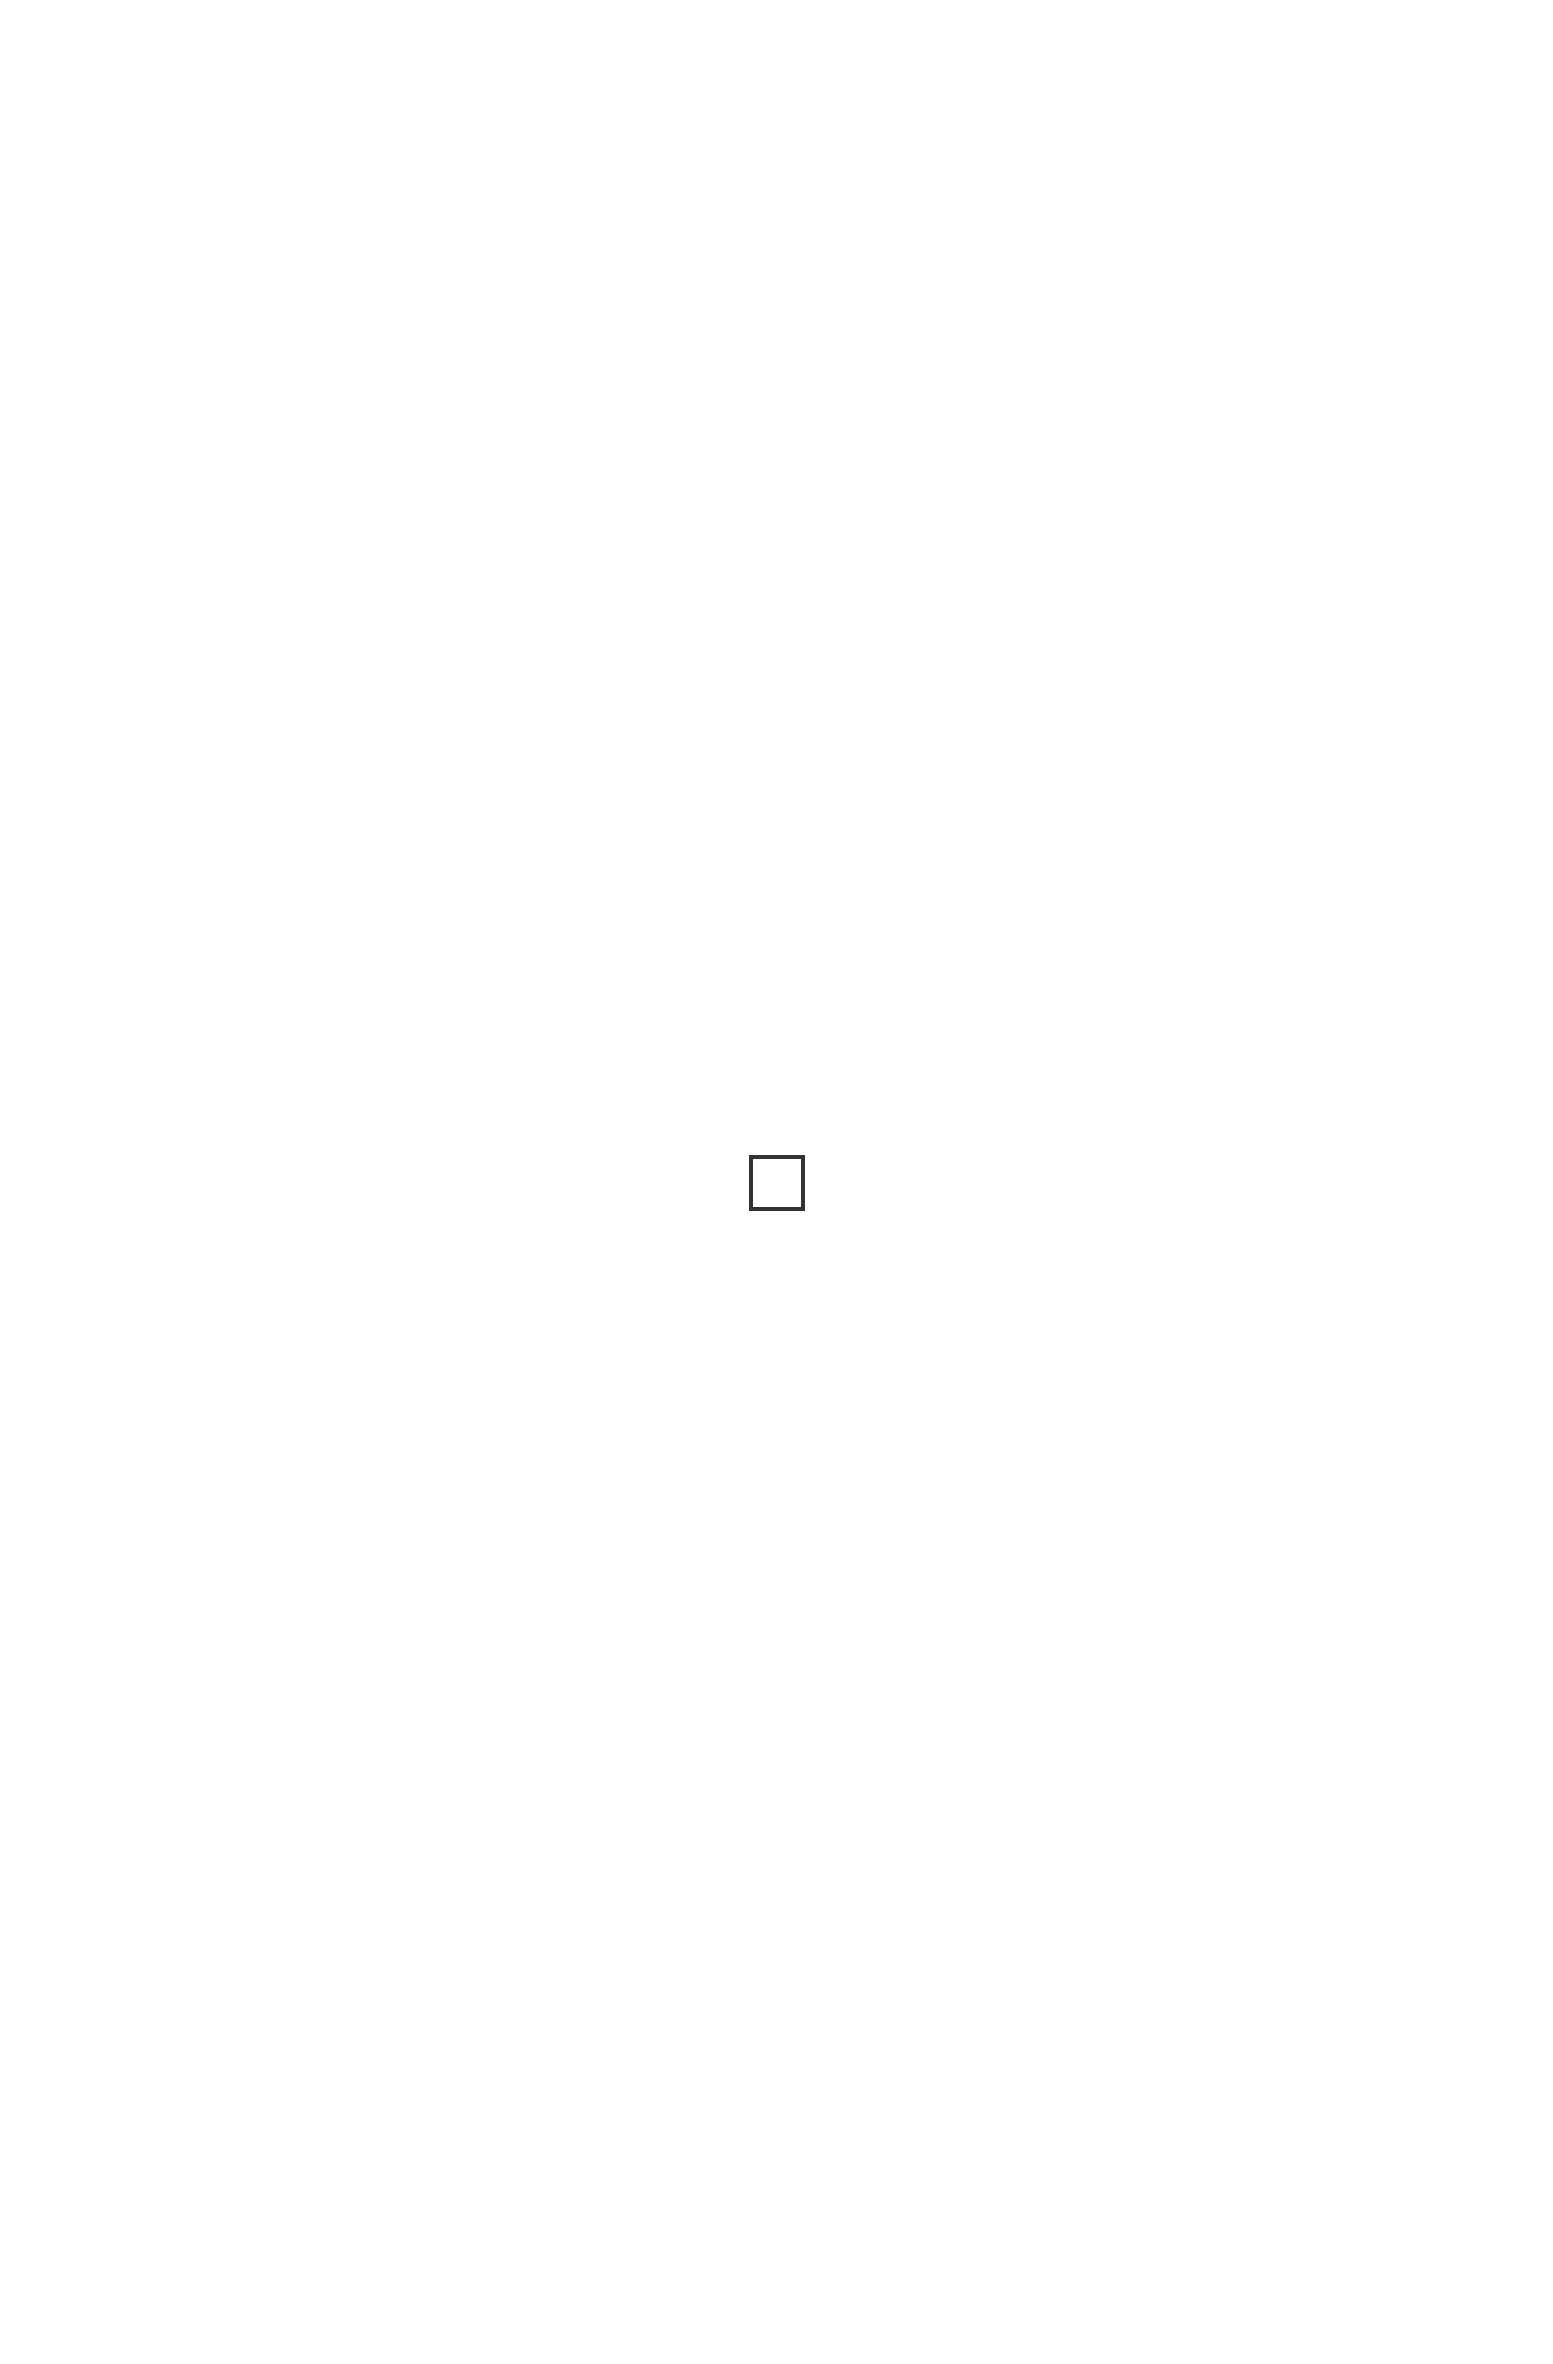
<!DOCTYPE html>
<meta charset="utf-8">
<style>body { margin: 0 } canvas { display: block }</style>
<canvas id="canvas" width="1553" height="2364"></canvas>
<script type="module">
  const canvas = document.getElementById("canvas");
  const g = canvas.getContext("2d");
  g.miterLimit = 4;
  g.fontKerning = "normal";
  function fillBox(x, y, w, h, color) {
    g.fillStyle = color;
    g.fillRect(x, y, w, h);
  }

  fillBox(0, 0, 1553, 2364, "#FFFFFF");
  g.strokeStyle = "#333333";
  g.lineWidth = 4;
  g.strokeRect(751, 1157, 52, 52);
</script>
